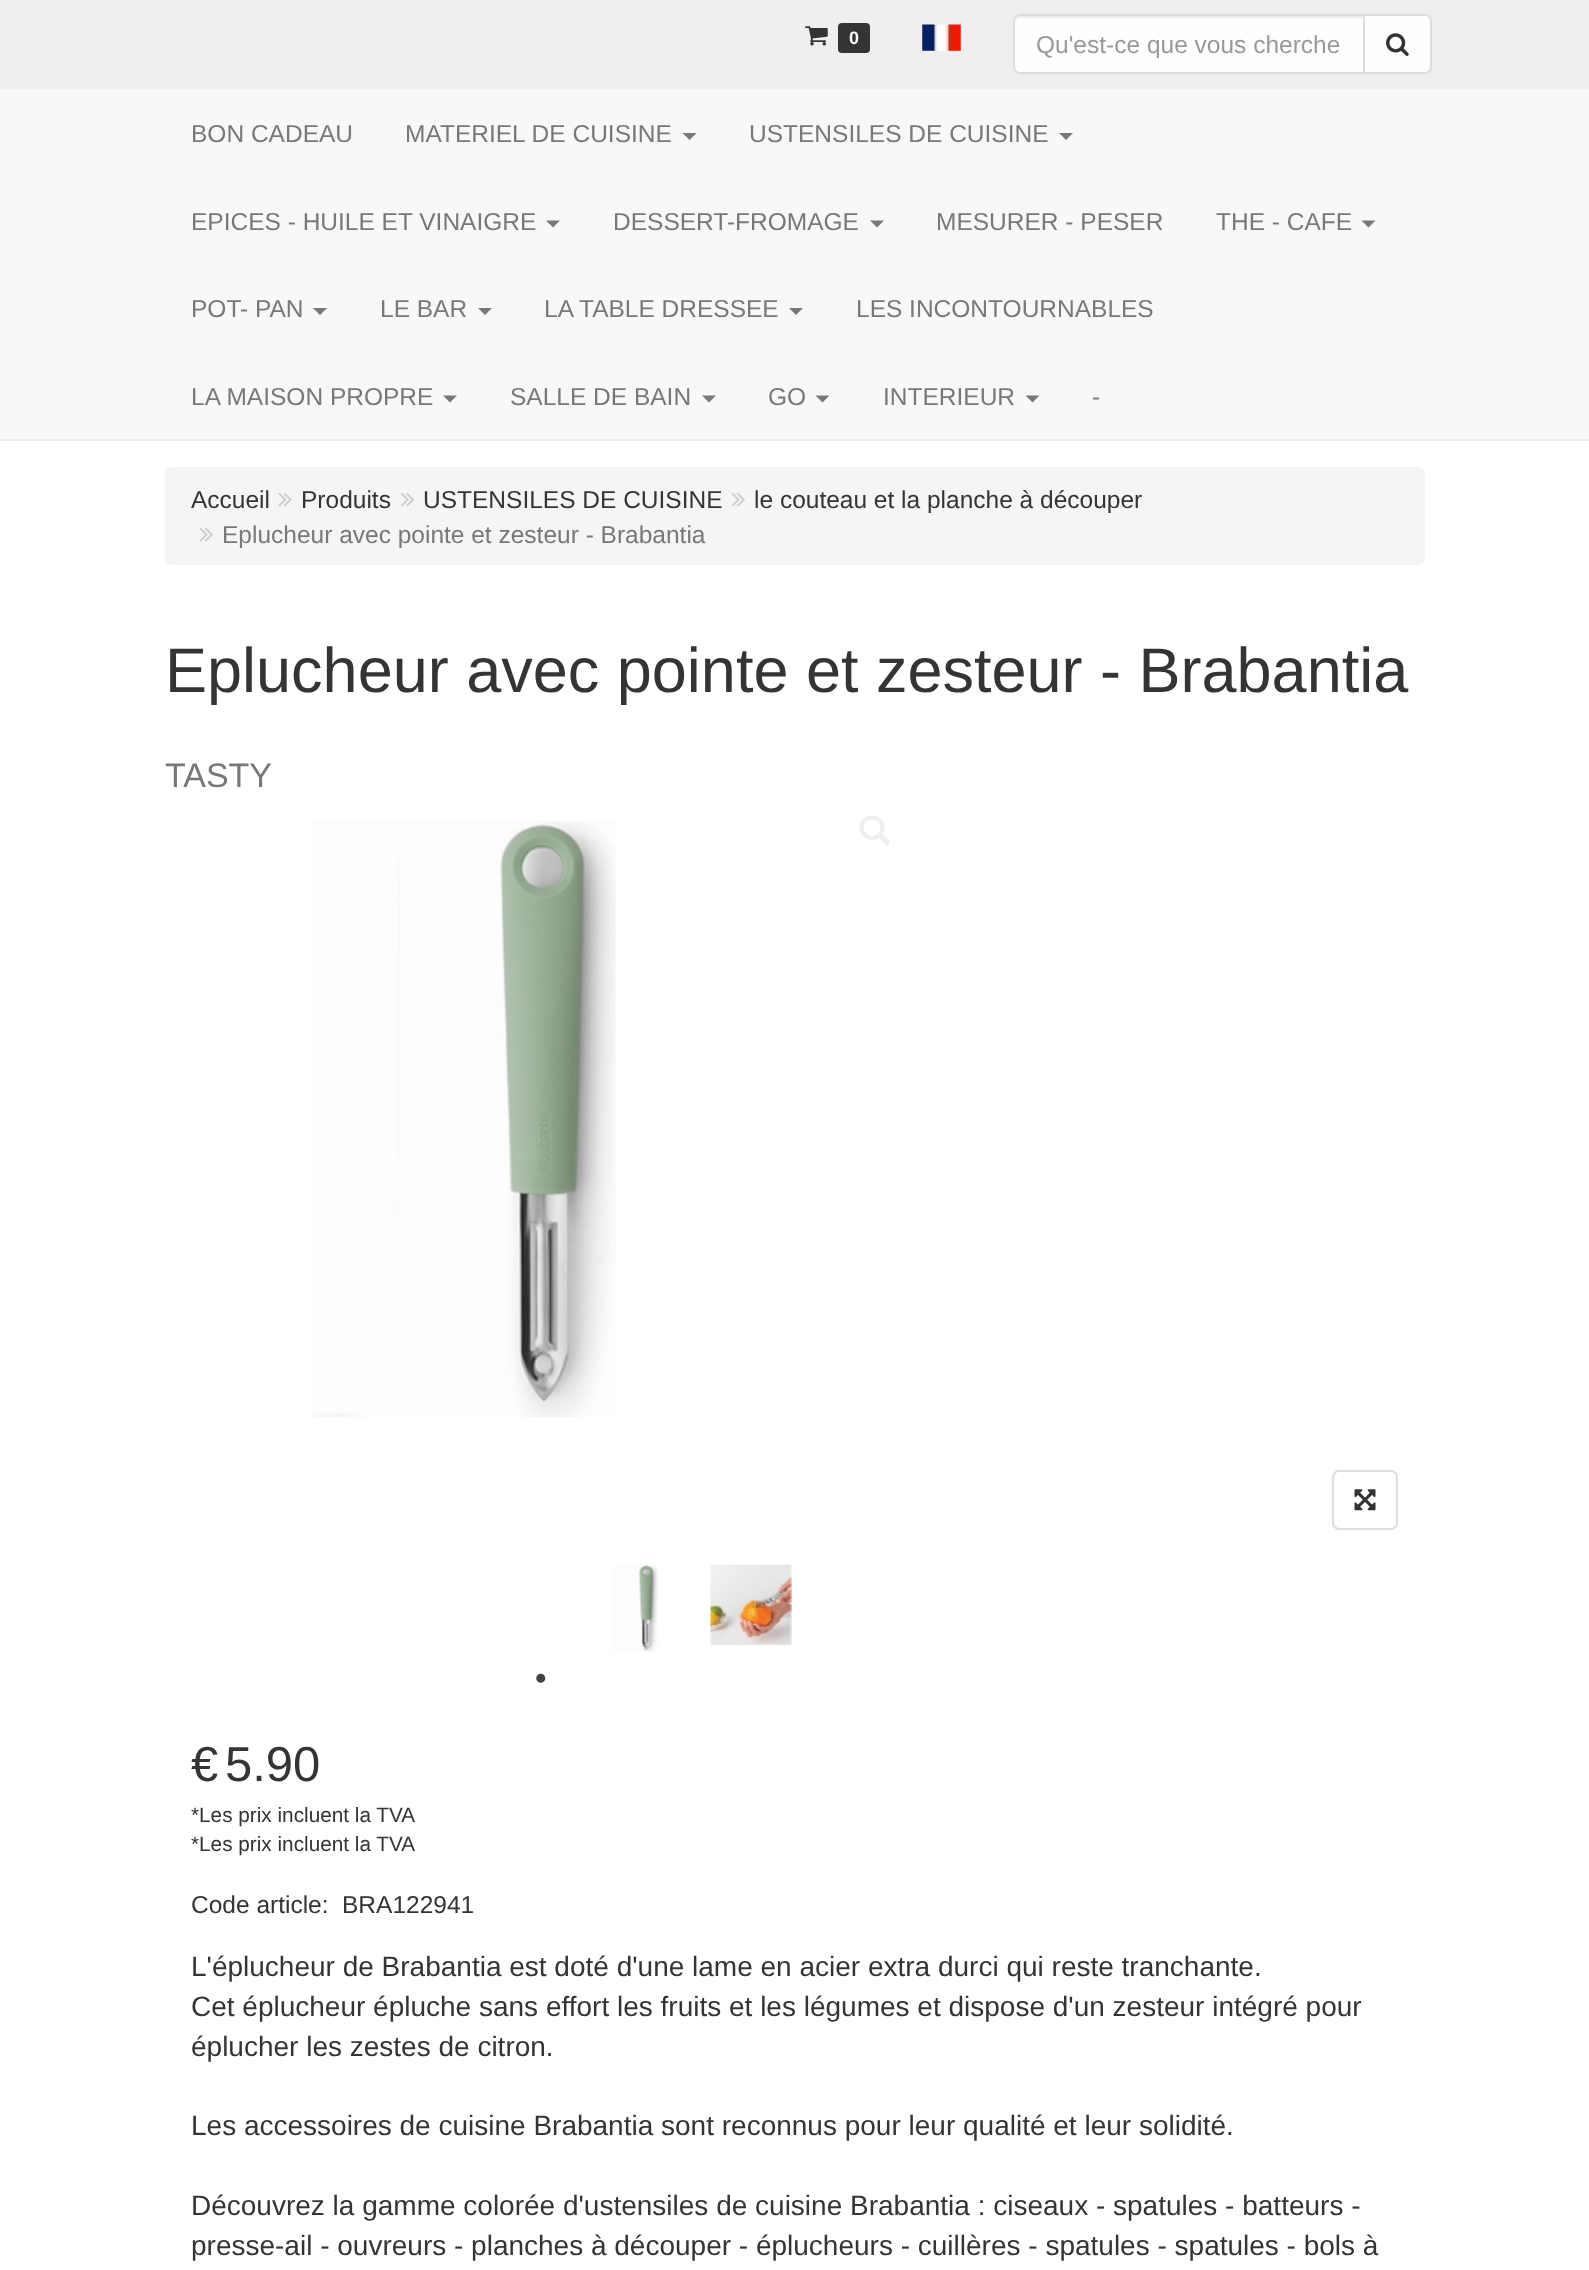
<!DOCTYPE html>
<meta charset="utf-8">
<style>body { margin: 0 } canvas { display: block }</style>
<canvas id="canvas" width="1589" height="2270"></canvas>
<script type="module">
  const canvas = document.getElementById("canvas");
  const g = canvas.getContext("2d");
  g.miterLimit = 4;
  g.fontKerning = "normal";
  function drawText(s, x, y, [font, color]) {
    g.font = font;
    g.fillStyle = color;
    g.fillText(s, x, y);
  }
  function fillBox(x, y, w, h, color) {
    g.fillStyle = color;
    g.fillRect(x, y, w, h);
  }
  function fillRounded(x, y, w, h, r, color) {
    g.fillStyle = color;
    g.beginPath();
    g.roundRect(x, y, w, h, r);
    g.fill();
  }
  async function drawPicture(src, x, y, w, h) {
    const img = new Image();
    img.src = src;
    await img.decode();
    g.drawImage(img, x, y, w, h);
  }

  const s1 = ["bold 18px Liberation Sans", "#FFFFFF"];
  const s2 = ["24.5px Liberation Sans", "#999999"];
  const s3 = ["24.5px Liberation Sans", "#787878"];
  const s4 = ["24.5px Liberation Sans", "#343434"];
  const s5 = ["63px Liberation Sans", "#343434"];
  const s6 = ["34px Liberation Sans", "#787878"];
  const s7 = ["49px Liberation Sans", "#343434"];
  const s8 = ["20.75px Liberation Sans", "#343434"];
  const s9 = ["28px Liberation Sans", "#343434"];

  fillBox(0, 0, 1589, 2270, "#FFFFFF");
  fillBox(0, 0, 1589, 89, "#EFEFEF");
  await drawPicture("pic1.png", 805, 26, 23, 20);
  fillRounded(838, 23, 32, 30, 4, "#343434");
  drawText("0", 849, 44, s1);
  await drawPicture("pic2.png", 922, 24, 39, 27);
  g.fillStyle = "#FEFEFE";
  g.beginPath();
  g.roundRect(1013, 14, 352, 60, [7, 0, 0, 7]);
  g.fill();
  g.fillStyle = "#EBEBEB";
  g.beginPath();
  g.moveTo(1020, 18);
  g.lineTo(1363, 18);
  g.lineTo(1363, 16);
  g.lineTo(1020, 16);
  g.bezierCurveTo(1016, 16, 1015, 20, 1015, 23);
  g.bezierCurveTo(1015, 20, 1017, 18, 1020, 18);
  g.closePath();
  g.fill();
  g.beginPath();
  g.roundRect(1014, 15, 350, 58, [6, 0, 0, 6]);
  g.strokeStyle = "#DDDDDD";
  g.lineWidth = 2;
  g.stroke();
  drawText("Qu'est-ce que vous cherche", 1036, 53, s2);
  g.fillStyle = "#FEFEFE";
  g.beginPath();
  g.roundRect(1364, 15, 67, 58, [0, 6, 6, 0]);
  g.fill();
  g.stroke();
  await drawPicture("pic3.png", 1386, 33, 23, 23);
  fillBox(0, 89, 1589, 350, "#F8F8F8");
  fillBox(0, 439, 1589, 2, "#EBEBEB");
  drawText("BON CADEAU", 191, 142, s3);
  drawText("MATERIEL DE CUISINE", 405, 142, s3);
  g.beginPath();
  g.moveTo(682.5, 133);
  g.lineTo(696.5, 133);
  g.lineTo(689.5, 140);
  g.closePath();
  g.fill();
  drawText("USTENSILES DE CUISINE", 749, 142, s3);
  g.beginPath();
  g.moveTo(1059, 133);
  g.lineTo(1073, 133);
  g.lineTo(1066, 140);
  g.closePath();
  g.fill();
  drawText("EPICES - HUILE ET VINAIGRE", 191, 230, s3);
  g.beginPath();
  g.moveTo(546, 220.5);
  g.lineTo(560, 220.5);
  g.lineTo(553, 227.5);
  g.closePath();
  g.fill();
  drawText("DESSERT-FROMAGE", 613, 230, s3);
  g.beginPath();
  g.moveTo(870, 220.5);
  g.lineTo(884, 220.5);
  g.lineTo(877, 227.5);
  g.closePath();
  g.fill();
  drawText("MESURER - PESER", 936, 230, s3);
  drawText("THE - CAFE", 1216, 230, s3);
  g.beginPath();
  g.moveTo(1361.5, 220.5);
  g.lineTo(1375.5, 220.5);
  g.lineTo(1368.5, 227.5);
  g.closePath();
  g.fill();
  drawText("POT- PAN", 191, 317, s3);
  g.beginPath();
  g.moveTo(313, 308);
  g.lineTo(327, 308);
  g.lineTo(320, 315);
  g.closePath();
  g.fill();
  drawText("LE BAR", 380, 317, s3);
  g.beginPath();
  g.moveTo(478, 308);
  g.lineTo(492, 308);
  g.lineTo(485, 315);
  g.closePath();
  g.fill();
  drawText("LA TABLE DRESSEE", 544, 317, s3);
  g.beginPath();
  g.moveTo(789, 308);
  g.lineTo(803, 308);
  g.lineTo(796, 315);
  g.closePath();
  g.fill();
  drawText("LES INCONTOURNABLES", 856, 317, s3);
  drawText("LA MAISON PROPRE", 191, 405, s3);
  g.beginPath();
  g.moveTo(443, 395.5);
  g.lineTo(457, 395.5);
  g.lineTo(450, 402.5);
  g.closePath();
  g.fill();
  drawText("SALLE DE BAIN", 510, 405, s3);
  g.beginPath();
  g.moveTo(702, 395.5);
  g.lineTo(716, 395.5);
  g.lineTo(709, 402.5);
  g.closePath();
  g.fill();
  drawText("GO", 768, 405, s3);
  g.beginPath();
  g.moveTo(815.5, 395.5);
  g.lineTo(829.5, 395.5);
  g.lineTo(822.5, 402.5);
  g.closePath();
  g.fill();
  drawText("INTERIEUR", 883, 405, s3);
  g.beginPath();
  g.moveTo(1025.5, 395.5);
  g.lineTo(1039.5, 395.5);
  g.lineTo(1032.5, 402.5);
  g.closePath();
  g.fill();
  drawText("-", 1092, 405, s3);
  fillRounded(165, 467, 1260, 98, 7, "#F5F5F5");
  drawText("Accueil", 191, 508, s4);
  await drawPicture("pic4.png", 278, 493, 14, 14);
  drawText("Produits", 301, 508, s4);
  await drawPicture("pic5.png", 401, 493, 13, 14);
  drawText("USTENSILES DE CUISINE", 423, 508, s4);
  await drawPicture("pic6.png", 731, 493, 14, 14);
  drawText("le couteau et la planche à découper", 754, 508, s4);
  await drawPicture("pic6.png", 199, 528, 14, 14);
  drawText("Eplucheur avec pointe et zesteur - Brabantia", 222, 543, s3);
  drawText("Eplucheur avec pointe et zesteur - Brabantia", 165, 692, s5);
  drawText("TASTY", 165, 787, s6);
  await drawPicture("pic7.png", 312, 820, 304, 598);
  await drawPicture("pic8.png", 859, 816, 31, 30);
  g.beginPath();
  g.roundRect(1333, 1471, 64, 58, 6);
  g.stroke();
  await drawPicture("pic9.png", 1354, 1489, 22, 22);
  await drawPicture("pic10.png", 611, 1565, 47, 87);
  await drawPicture("pic11.png", 710, 1564, 82, 82);
  await drawPicture("pic12.png", 536, 1673, 10, 10);
  drawText("€", 191, 1781, s7);
  drawText("5.90", 225, 1781, s7);
  drawText("*Les prix incluent la TVA", 191, 1822, s8);
  drawText("*Les prix incluent la TVA", 191, 1851, s8);
  drawText("Code article:", 191, 1913, s4);
  drawText("BRA122941", 342, 1913, s4);
  drawText("L'éplucheur de Brabantia est doté d'une lame en acier extra durci qui reste tranchante.", 191, 1976, s9);
  drawText("Cet éplucheur épluche sans effort les fruits et les légumes et dispose d'un zesteur intégré pour", 191, 2016, s9);
  drawText("éplucher les zestes de citron.", 191, 2056, s9);
  drawText("Les accessoires de cuisine Brabantia sont reconnus pour leur qualité et leur solidité.", 191, 2135, s9);
  drawText("Découvrez la gamme colorée d'ustensiles de cuisine Brabantia : ciseaux - spatules - batteurs -", 191, 2215, s9);
  drawText("presse-ail - ouvreurs - planches à découper - éplucheurs - cuillères - spatules - spatules - bols à", 191, 2255, s9);
</script>
